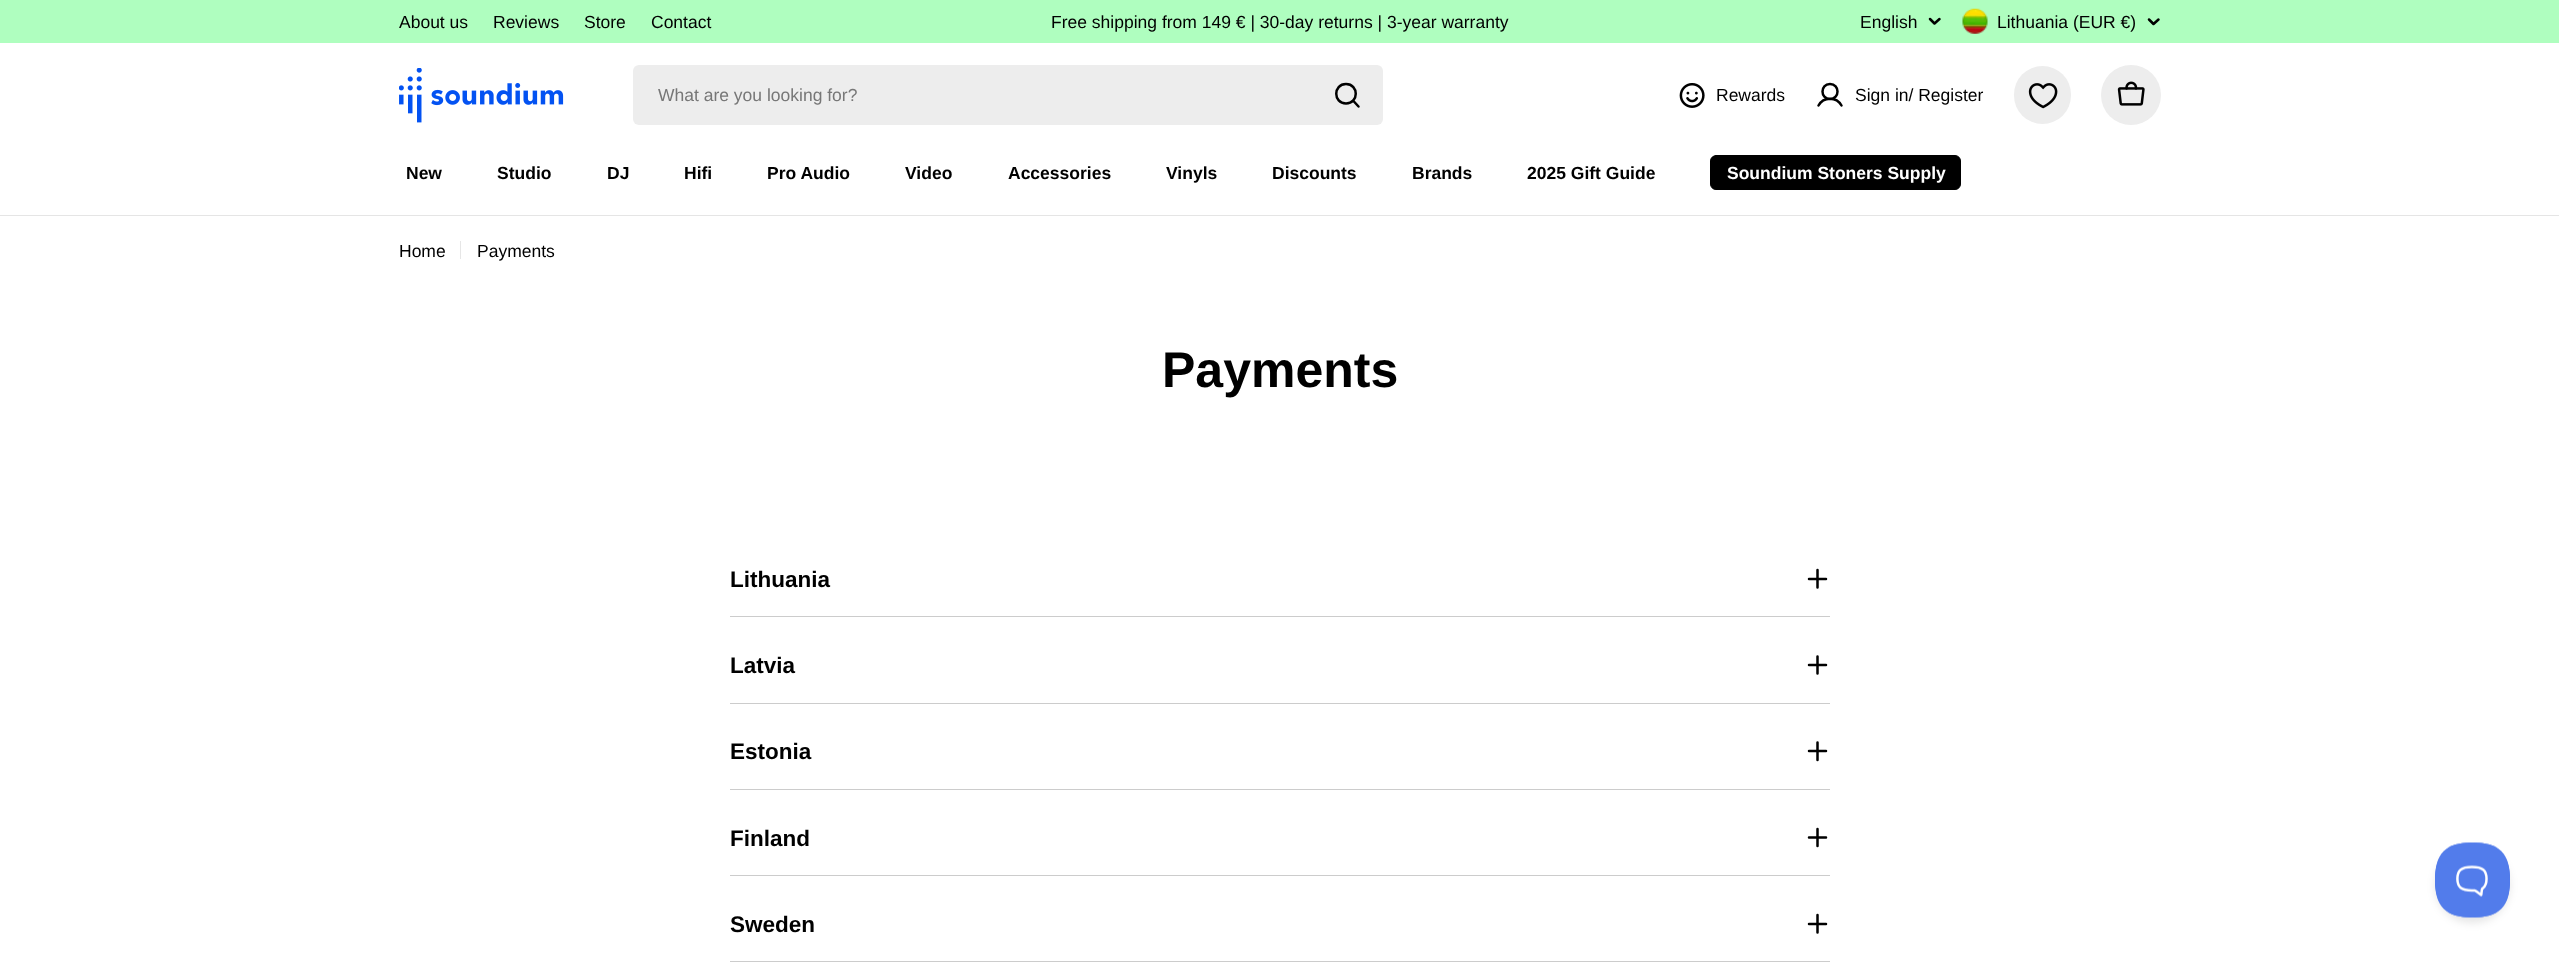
<!DOCTYPE html>
<meta charset="utf-8">
<style>body { margin: 0 } canvas { display: block }</style>
<canvas id="canvas" width="2559" height="967"></canvas>
<script type="module">
  const canvas = document.getElementById("canvas");
  const g = canvas.getContext("2d");
  g.miterLimit = 4;
  g.fontKerning = "normal";
  function drawText(s, x, y, [font, color]) {
    g.font = font;
    g.fillStyle = color;
    g.fillText(s, x, y);
  }
  function fillBox(x, y, w, h, color) {
    g.fillStyle = color;
    g.fillRect(x, y, w, h);
  }
  function fillRounded(x, y, w, h, r, color) {
    g.fillStyle = color;
    g.beginPath();
    g.roundRect(x, y, w, h, r);
    g.fill();
  }
  async function drawPicture(src, x, y, w, h) {
    const img = new Image();
    img.src = src;
    await img.decode();
    g.drawImage(img, x, y, w, h);
  }

  const s1 = ["17.5px Liberation Sans", "#000000"];
  const s2 = ["17.5px Liberation Sans", "#777777"];
  const s3 = ["bold 17.5px Liberation Sans", "#000000"];
  const s4 = ["bold 17.5px Liberation Sans", "#FFFFFF"];
  const s5 = ["bold 50px Liberation Sans", "#000000"];
  const s6 = ["bold 22.5px Liberation Sans", "#000000"];

  fillBox(0, 0, 2559, 967, "#FFFFFF");
  fillBox(0, 0, 2559, 43, "#AFFEBF");
  drawText("About us", 399, 28, s1);
  drawText("Reviews", 493, 28, s1);
  drawText("Store", 584, 28, s1);
  drawText("Contact", 651, 28, s1);
  drawText("Free shipping from 149 € | 30-day returns | 3-year warranty", 1051, 28, s1);
  drawText("English", 1860, 28, s1);
  g.beginPath();
  g.moveTo(1939.5, 19);
  g.lineTo(1934.5, 23.5);
  g.lineTo(1930, 19);
  g.strokeStyle = "#000000";
  g.lineWidth = 2.5;
  g.lineCap = "round";
  g.lineJoin = "round";
  g.stroke();
  await drawPicture("pic1.png", 1962, 8, 26, 26);
  drawText("Lithuania (EUR €)", 1997, 28, s1);
  g.beginPath();
  g.moveTo(2158.5, 19.5);
  g.lineTo(2153.5, 24);
  g.lineTo(2149, 19.5);
  g.stroke();
  fillBox(0, 215, 2559, 1, "#E5E5E5");
  await drawPicture("pic2.png", 399, 68, 165, 55);
  fillRounded(633, 65, 750, 60, 6, "#EDEDED");
  drawText("What are you looking for?", 658, 101, s2);
  g.beginPath();
  g.moveTo(1346, 103.5);
  g.bezierCurveTo(1359, 103.5, 1359, 84, 1346, 84);
  g.bezierCurveTo(1333, 84, 1333, 103.5, 1346, 103.5);
  g.closePath();
  g.moveTo(1353, 100.5);
  g.lineTo(1358.5, 106.5);
  g.stroke();
  await drawPicture("pic3.png", 1679, 83, 26, 25);
  drawText("Rewards", 1716, 101, s1);
  g.beginPath();
  g.moveTo(1830, 99);
  g.bezierCurveTo(1840, 99, 1840, 84, 1830, 84);
  g.bezierCurveTo(1820, 84, 1820, 99, 1830, 99);
  g.closePath();
  g.moveTo(1818.5, 105.5);
  g.bezierCurveTo(1823.5, 96.5, 1836.5, 96.5, 1841.5, 105.5);
  g.stroke();
  drawText("Sign in/ Register", 1855, 101, s1);
  fillRounded(2014, 66, 57, 58, 28.5, "#EDEDED");
  await drawPicture("pic4.png", 2028, 83, 30, 26);
  g.beginPath();
  g.arc(2131, 95, 30, 0, Math.PI * 2);
  g.fill();
  await drawPicture("pic5.png", 2117, 81, 28, 25);
  drawText("New", 406, 179, s3);
  drawText("Studio", 497, 179, s3);
  drawText("DJ", 607, 179, s3);
  drawText("Hifi", 684, 179, s3);
  drawText("Pro Audio", 767, 179, s3);
  drawText("Video", 905, 179, s3);
  drawText("Accessories", 1008, 179, s3);
  drawText("Vinyls", 1166, 179, s3);
  drawText("Discounts", 1272, 179, s3);
  drawText("Brands", 1412, 179, s3);
  drawText("2025 Gift Guide", 1527, 179, s3);
  g.beginPath();
  g.roundRect(1710.5, 155.5, 250, 34, 5.5);
  g.fill();
  g.lineWidth = 1;
  g.lineJoin = "miter";
  g.stroke();
  drawText("Soundium Stoners Supply", 1727, 179, s4);
  drawText("Home", 399, 257, s1);
  fillBox(460, 241, 1, 18, "#E6E6E6");
  drawText("Payments", 477, 257, s1);
  drawText("Payments", 1162, 387, s5);
  fillBox(730, 616, 1100, 1, "#CCCCCC");
  drawText("Lithuania", 730, 587, s6);
  g.beginPath();
  g.moveTo(1809, 579);
  g.lineTo(1826, 579);
  g.moveTo(1817.5, 570);
  g.lineTo(1817.5, 587.5);
  g.lineWidth = 2.5;
  g.lineJoin = "round";
  g.stroke();
  fillBox(730, 703, 1100, 1, "#CCCCCC");
  drawText("Latvia", 730, 673, s6);
  g.beginPath();
  g.moveTo(1809, 665);
  g.lineTo(1826, 665);
  g.moveTo(1817.5, 656.5);
  g.lineTo(1817.5, 673.5);
  g.stroke();
  fillBox(730, 789, 1100, 1, "#CCCCCC");
  drawText("Estonia", 730, 759, s6);
  g.beginPath();
  g.moveTo(1809, 751);
  g.lineTo(1826, 751);
  g.moveTo(1817.5, 742.5);
  g.lineTo(1817.5, 760);
  g.stroke();
  fillBox(730, 875, 1100, 1, "#CCCCCC");
  drawText("Finland", 730, 846, s6);
  g.beginPath();
  g.moveTo(1809, 837.5);
  g.lineTo(1826, 837.5);
  g.moveTo(1817.5, 829);
  g.lineTo(1817.5, 846);
  g.stroke();
  fillBox(730, 961, 1100, 1, "#CCCCCC");
  drawText("Sweden", 730, 932, s6);
  g.beginPath();
  g.moveTo(1809, 924);
  g.lineTo(1826, 924);
  g.moveTo(1817.5, 915);
  g.lineTo(1817.5, 932.5);
  g.stroke();
  g.fillStyle = "rgba(0, 0, 0, 0.1)";
  g.filter = "blur(4.5px)";
  g.beginPath();
  g.roundRect(2435, 848, 75, 75, 37.5);
  g.fill();
  g.filter = "none";
  await drawPicture("pic6.png", 2435, 842, 75, 76);
</script>
